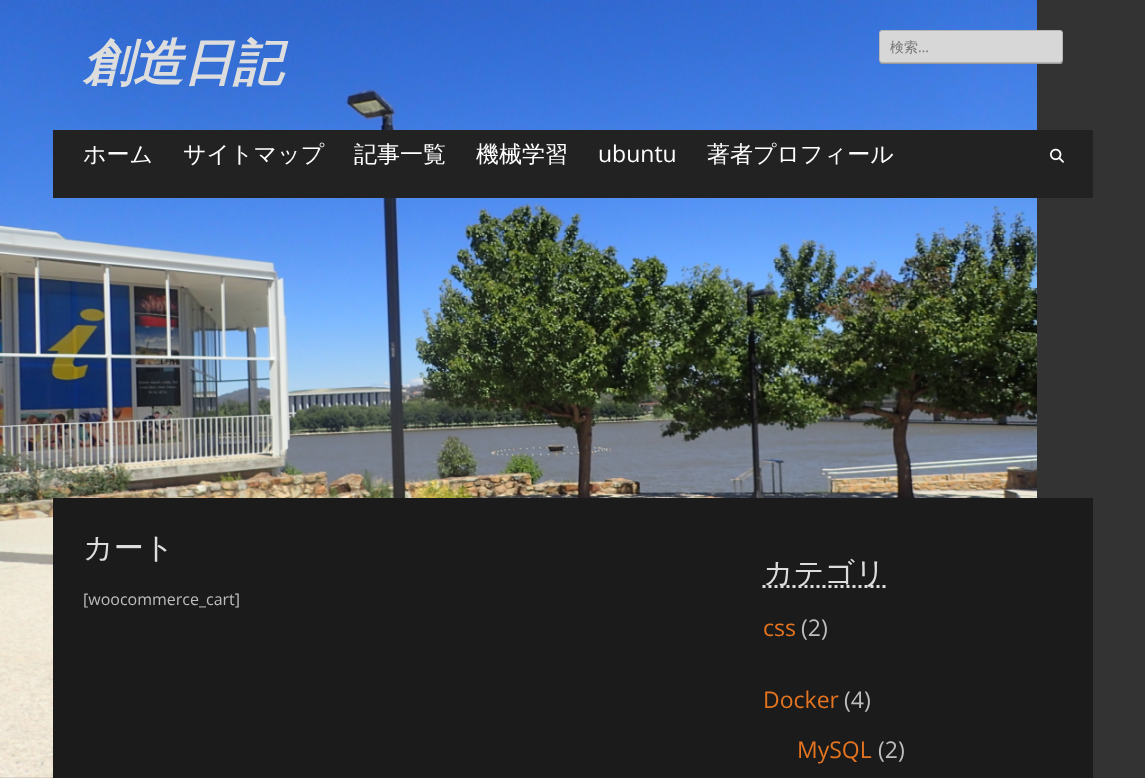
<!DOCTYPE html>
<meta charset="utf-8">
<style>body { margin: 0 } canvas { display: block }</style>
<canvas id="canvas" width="1145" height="778"></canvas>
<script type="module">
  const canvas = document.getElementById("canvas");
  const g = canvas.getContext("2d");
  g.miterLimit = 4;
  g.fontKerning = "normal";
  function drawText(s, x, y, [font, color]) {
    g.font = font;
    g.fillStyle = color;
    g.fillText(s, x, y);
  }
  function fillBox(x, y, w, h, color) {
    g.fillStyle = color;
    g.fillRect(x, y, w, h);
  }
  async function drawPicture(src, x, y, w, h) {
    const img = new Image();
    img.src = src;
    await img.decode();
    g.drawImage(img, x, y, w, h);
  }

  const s1 = ["italic bold 50px WenQuanYi Zen Hei", "#DDDDDD"];
  const s2 = ["500 14px WenQuanYi Zen Hei", "#757575"];
  const s3 = ["14px Open Sans", "#757575"];
  const s4 = ["500 23px WenQuanYi Zen Hei", "#FFFFFF"];
  const s5 = ["23px Open Sans", "#FFFFFF"];
  const s6 = ["500 30px WenQuanYi Zen Hei", "#DDDDDD"];
  const s7 = ["16px Open Sans", "#BEBEBE"];
  const s8 = ["23px Open Sans", "#E4741F"];
  const s9 = ["23px Open Sans", "#BEBEBE"];

  fillBox(0, 0, 1145, 778, "#333333");
  await drawPicture("pic1.png", 0, 0, 1037, 778);
  drawText("創造日記", 83, 80, s1);
  g.fillStyle = "#999999";
  g.beginPath();
  g.moveTo(879, 60);
  g.bezierCurveTo(879, 62, 880, 64, 882, 64);
  g.lineTo(1061, 64);
  g.bezierCurveTo(1063, 63, 1063, 62, 1063, 60);
  g.bezierCurveTo(1063, 62, 1062, 63, 1060, 63);
  g.lineTo(882, 63);
  g.bezierCurveTo(880, 63, 879, 62, 879, 60);
  g.closePath();
  g.fill();
  g.fillStyle = "#D7D7D7";
  g.beginPath();
  g.roundRect(879.5, 30.5, 183, 32, 2.5);
  g.fill();
  g.strokeStyle = "#B6B6B6";
  g.stroke();
  drawText("検索", 890, 52, s2);
  drawText("…", 918, 52, s3);
  fillBox(53, 130, 1040, 68, "#222222");
  drawText("ホーム", 83, 162, s4);
  drawText("サイトマップ", 183, 162, s4);
  drawText("記事一覧", 354, 162, s4);
  drawText("機械学習", 476, 162, s4);
  drawText("ubuntu", 598, 162, s5);
  drawText("著者プロフィール", 707, 162, s4);
  await drawPicture("pic2.png", 1050, 148, 14, 15);
  fillBox(53, 498, 1040, 280, "#1B1B1B");
  drawText("カート", 83, 558, s6);
  drawText("[woocommerce_cart]", 83, 605, s7);
  g.beginPath();
  g.moveTo(762.5, 586.5);
  g.lineTo(885.5, 586.5);
  g.strokeStyle = "#DDDDDD";
  g.lineWidth = 3;
  g.setLineDash([3, 3]);
  g.stroke();
  drawText("カテゴリ", 763, 583, s6);
  drawText("css", 763, 636, s8);
  drawText("(2)", 801, 636, s9);
  drawText("Docker", 763, 708, s8);
  drawText("(4)", 844, 708, s9);
  drawText("MySQL", 797, 758, s8);
  drawText("(2)", 878, 758, s9);
</script>
